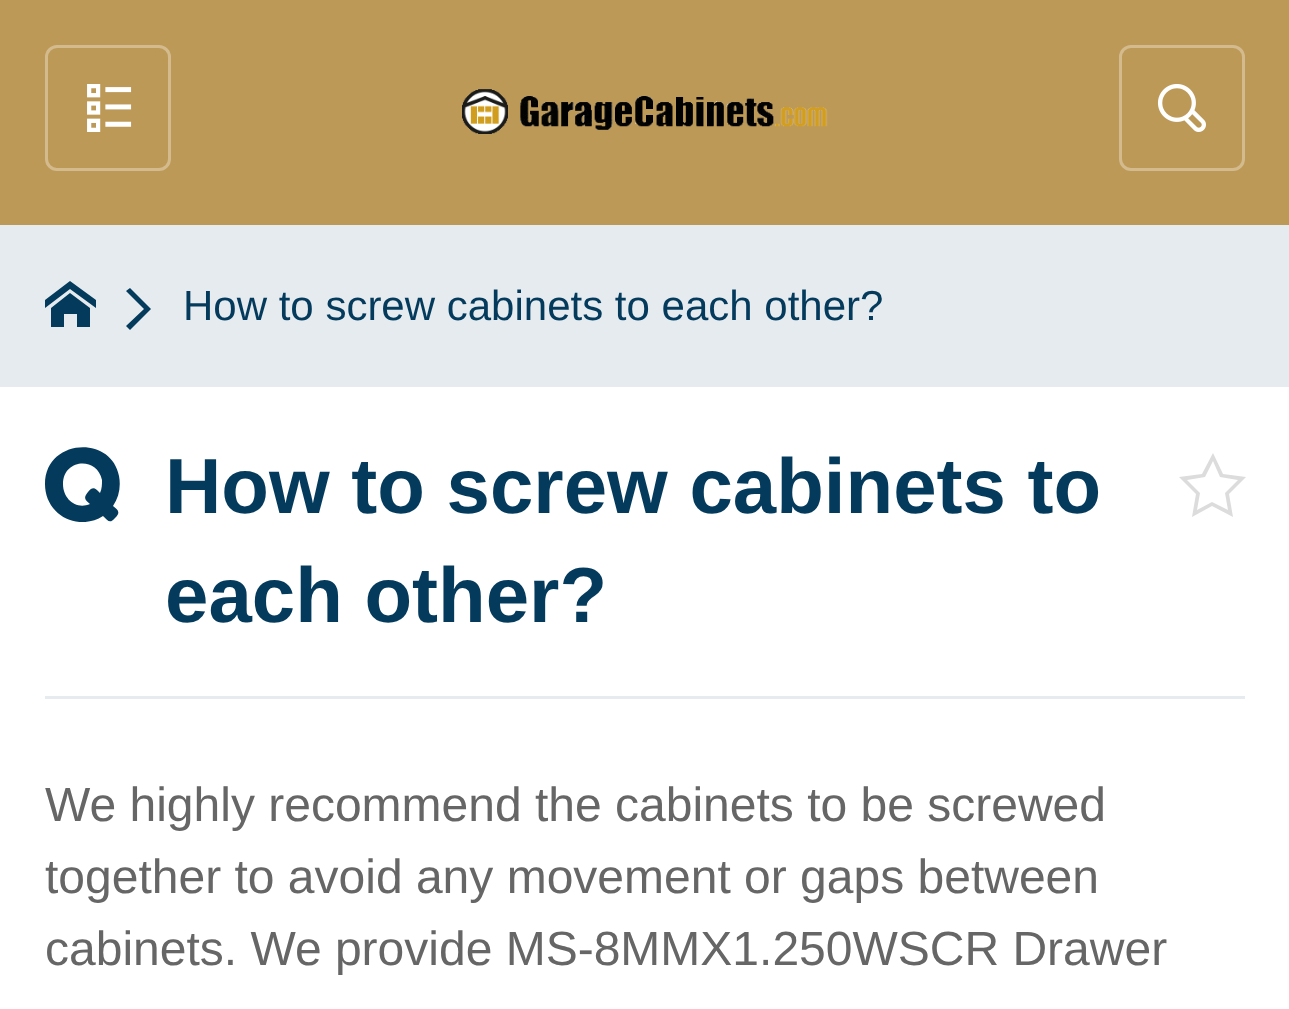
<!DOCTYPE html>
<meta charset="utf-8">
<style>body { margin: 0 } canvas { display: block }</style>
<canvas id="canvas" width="1289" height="1009"></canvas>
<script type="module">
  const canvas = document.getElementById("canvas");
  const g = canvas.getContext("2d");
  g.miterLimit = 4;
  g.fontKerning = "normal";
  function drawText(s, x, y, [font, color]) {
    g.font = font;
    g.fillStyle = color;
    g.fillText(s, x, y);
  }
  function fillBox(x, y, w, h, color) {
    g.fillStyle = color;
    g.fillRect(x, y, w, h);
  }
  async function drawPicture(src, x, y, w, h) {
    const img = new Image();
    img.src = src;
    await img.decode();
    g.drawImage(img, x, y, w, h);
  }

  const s1 = ["42px Liberation Sans", "#043A5C"];
  const s2 = ["bold 78px Liberation Sans", "#043A5C"];
  const s3 = ["48px Liberation Sans", "#666666"];

  fillBox(0, 0, 1289, 1009, "#FFFFFF");
  fillBox(0, 0, 1289, 225, "#BD9957");
  g.beginPath();
  g.roundRect(46.5, 46.5, 123, 123, 10.5);
  g.strokeStyle = "#D3BB8E";
  g.lineWidth = 3;
  g.stroke();
  await drawPicture("pic1.png", 87, 84, 45, 48);
  await drawPicture("pic2.png", 462, 89, 366, 45);
  g.beginPath();
  g.roundRect(1120.5, 46.5, 123, 123, 10.5);
  g.stroke();
  await drawPicture("pic3.png", 1157, 84, 49, 48);
  fillBox(0, 225, 1289, 162, "#E5EBEE");
  g.fillStyle = "#043A5C";
  g.beginPath();
  g.moveTo(96, 308);
  g.lineTo(70, 289);
  g.lineTo(45, 308);
  g.lineTo(45, 300);
  g.lineTo(70, 281);
  g.lineTo(96, 300);
  g.closePath();
  g.moveTo(90, 308);
  g.lineTo(90, 327);
  g.lineTo(77, 327);
  g.lineTo(77, 314);
  g.lineTo(64, 314);
  g.lineTo(64, 327);
  g.lineTo(51, 327);
  g.lineTo(51, 308);
  g.lineTo(70, 293);
  g.closePath();
  g.fill();
  g.beginPath();
  g.moveTo(126, 291);
  g.lineTo(144, 309);
  g.lineTo(126, 326);
  g.lineTo(130, 330);
  g.lineTo(151, 309);
  g.lineTo(130, 288);
  g.closePath();
  g.fill();
  drawText("How to screw cabinets to each other?", 183, 320, s1);
  g.save();
  g.beginPath();
  g.rect(45, 447, 75, 75);
  g.clip();
  g.beginPath();
  g.moveTo(45, 484);
  g.bezierCurveTo(45, 439, 111, 434, 119, 476);
  g.bezierCurveTo(121, 487, 119, 497, 113, 506);
  g.bezierCurveTo(118, 510, 121, 512, 115, 518);
  g.bezierCurveTo(110, 524, 108, 521, 103, 516);
  g.bezierCurveTo(78, 532, 45, 515, 45, 484);
  g.closePath();
  g.moveTo(63, 484);
  g.bezierCurveTo(63, 499, 76, 510, 90, 504);
  g.bezierCurveTo(85, 500, 83, 498, 88, 492);
  g.bezierCurveTo(93, 486, 95, 488, 100, 493);
  g.bezierCurveTo(102, 489, 102, 484, 102, 480);
  g.bezierCurveTo(97, 456, 63, 459, 63, 484);
  g.closePath();
  g.fill();
  g.restore();
  drawText("How to screw cabinets to", 165, 513, s2);
  drawText("each other?", 165, 622, s2);
  g.fillStyle = "#DCDCDC";
  g.beginPath();
  g.moveTo(1233, 517);
  g.lineTo(1212, 506);
  g.lineTo(1192, 517);
  g.lineTo(1196, 494);
  g.lineTo(1179, 477);
  g.lineTo(1202, 474);
  g.lineTo(1213, 453);
  g.lineTo(1223, 474);
  g.lineTo(1246, 477);
  g.lineTo(1229, 494);
  g.closePath();
  g.moveTo(1212, 502);
  g.lineTo(1228, 510);
  g.lineTo(1225, 493);
  g.lineTo(1238, 480);
  g.lineTo(1220, 477);
  g.lineTo(1213, 461);
  g.lineTo(1205, 477);
  g.lineTo(1187, 480);
  g.lineTo(1200, 493);
  g.lineTo(1197, 510);
  g.closePath();
  g.fill();
  fillBox(45, 696, 1200, 3, "#E5EBEE");
  drawText("We highly recommend the cabinets to be screwed", 45, 821, s3);
  drawText("together to avoid any movement or gaps between", 45, 893, s3);
  drawText("cabinets. We provide MS-8MMX1.250WSCR Drawer", 45, 965, s3);
</script>
